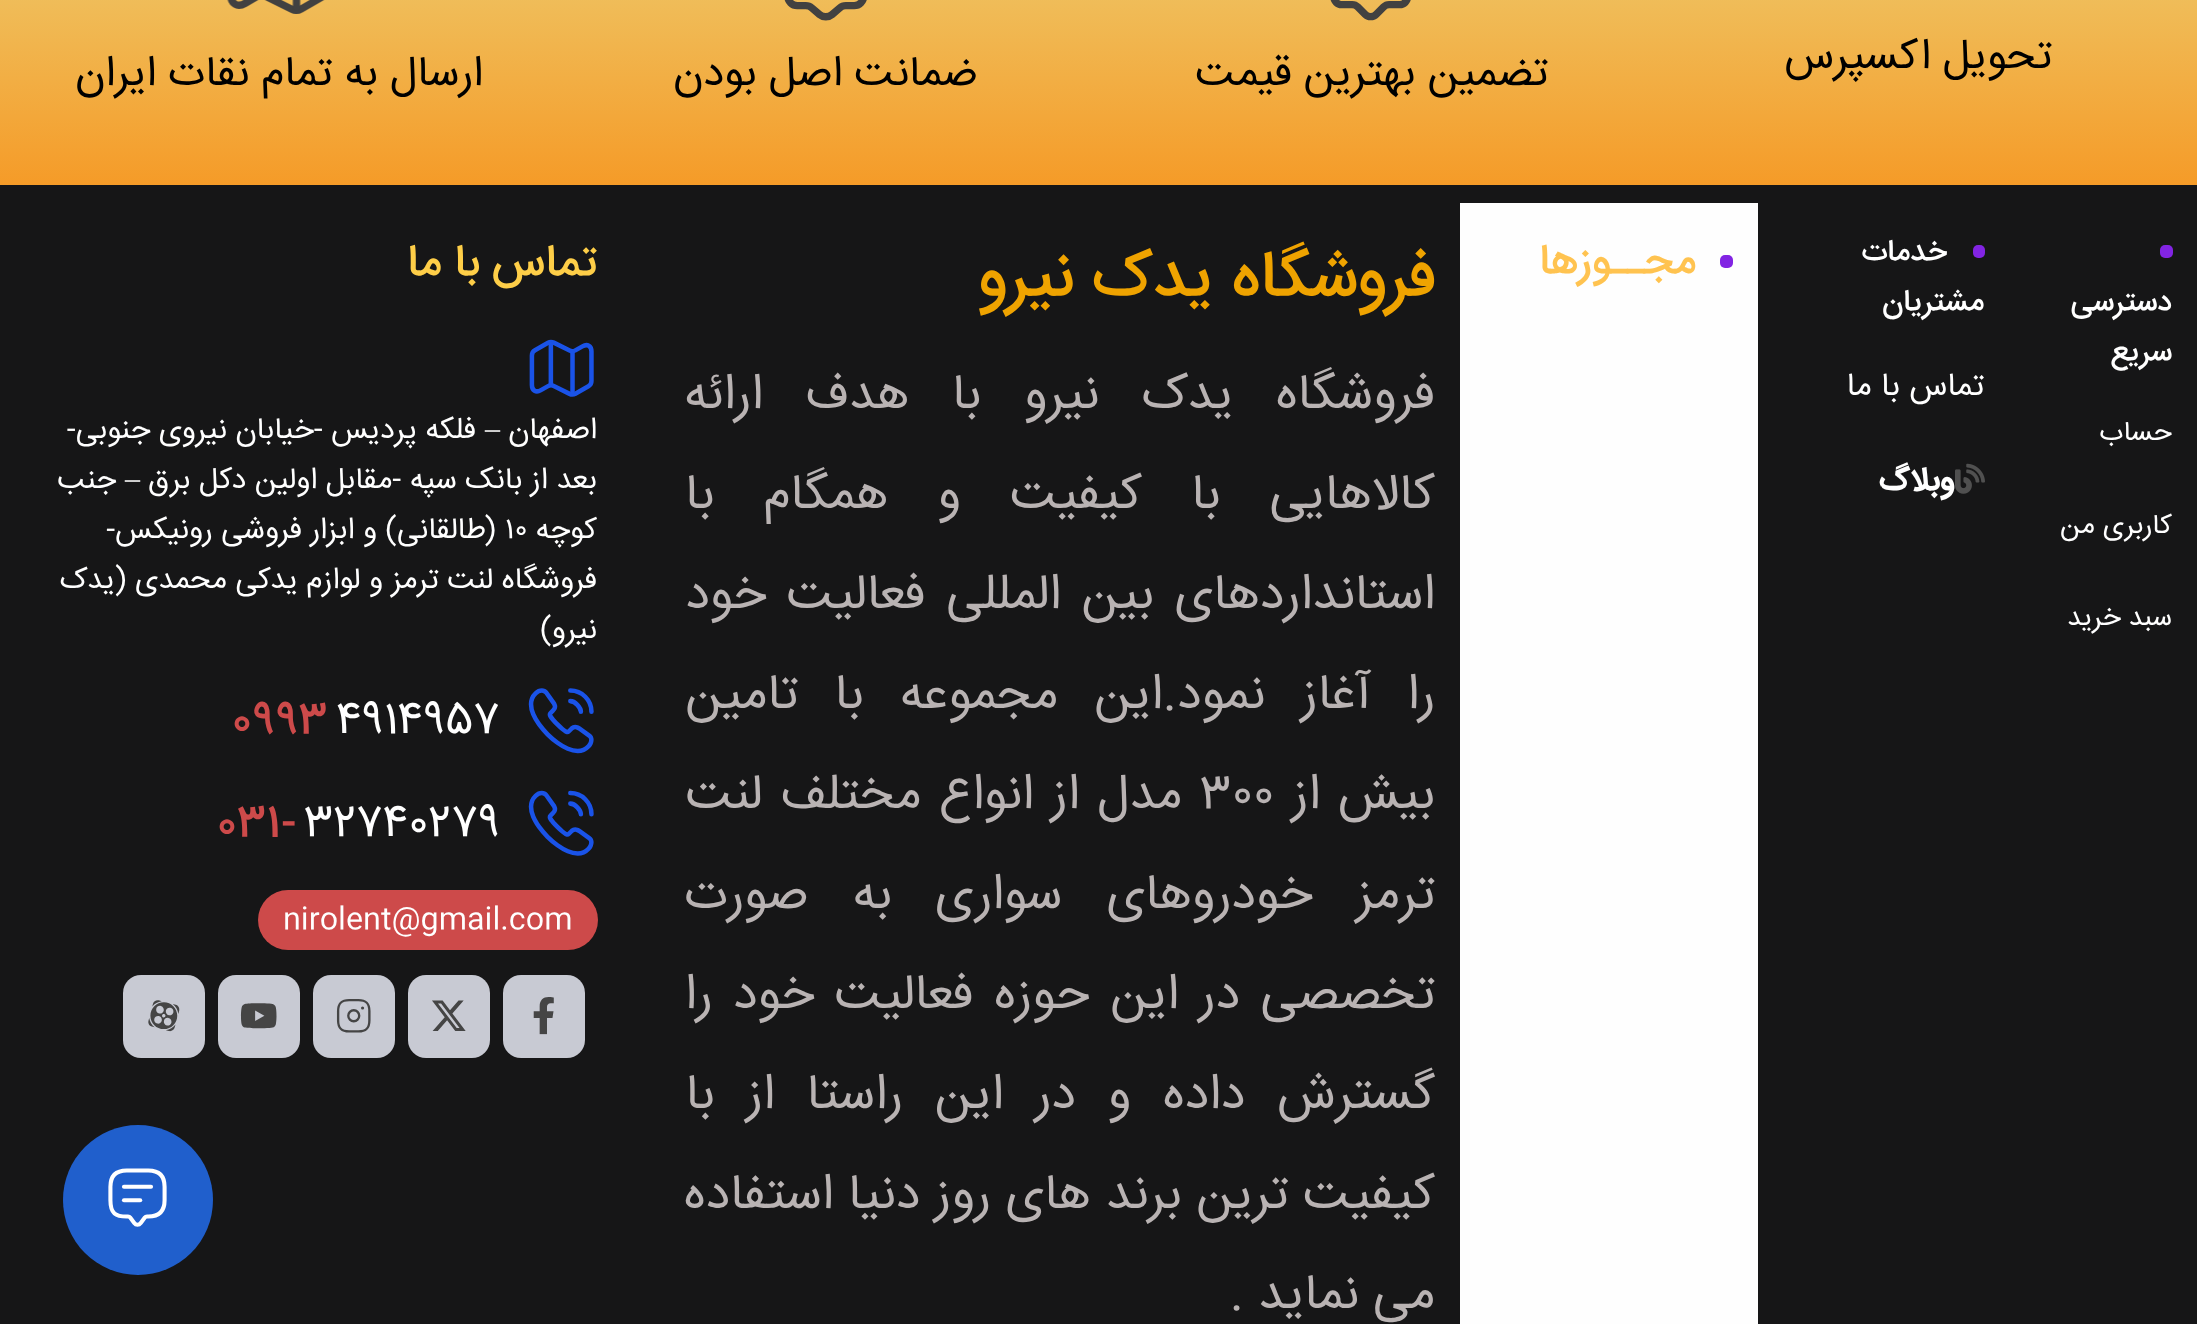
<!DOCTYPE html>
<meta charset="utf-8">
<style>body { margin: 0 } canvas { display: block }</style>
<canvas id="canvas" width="2197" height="1324"></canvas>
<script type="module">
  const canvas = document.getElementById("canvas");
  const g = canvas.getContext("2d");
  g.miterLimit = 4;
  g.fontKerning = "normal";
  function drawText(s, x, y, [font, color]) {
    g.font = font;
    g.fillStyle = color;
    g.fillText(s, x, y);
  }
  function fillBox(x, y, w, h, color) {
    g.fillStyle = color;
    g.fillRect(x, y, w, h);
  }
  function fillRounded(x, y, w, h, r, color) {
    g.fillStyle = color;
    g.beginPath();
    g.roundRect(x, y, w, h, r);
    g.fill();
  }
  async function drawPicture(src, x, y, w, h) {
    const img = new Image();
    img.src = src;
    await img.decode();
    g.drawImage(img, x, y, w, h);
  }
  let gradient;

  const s1 = ["42.5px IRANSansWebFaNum", "#000000"];
  const s2 = ["500 30px IRANSansWebFaNum", "#FFFFFF"];
  const s3 = ["32.5px IRANSansWebFaNum", "#FFFFFF"];
  const s4 = ["bold 32.5px IRANSansWebFaNum", "#FFFFFF"];
  const s5 = ["500 42.5px IRANSansWebFaNum", "#FFC350"];
  const s6 = ["500 65px IRANSansWebFaNum", "#EFA300"];
  const s7 = ["50px IRANSansWebFaNum", "#B9B3B3"];
  const s8 = ["500 45px IRANSansWebFaNum", "#FECE48"];
  const s9 = ["30px IRANSansWebFaNum", "#FFFFFF"];
  const s10 = ["30px Liberation Serif", "#FFFFFF"];
  const s11 = ["42.5px IRANSansWebFaNum", "#FFFFFF"];
  const s12 = ["500 42.5px IRANSansWebFaNum", "#CD4A4A"];
  const s13 = ["27.5px IRANSansWebFaNum", "#FFFFFF"];

  fillBox(0, 0, 2197, 1324, "#FFFFFF");
  gradient = g.createLinearGradient(1099, -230, 1099, 185);
  gradient.addColorStop(0, "#E9E695");
  gradient.addColorStop(1, "#F59B28");
  g.fillStyle = gradient;
  g.fillRect(0, 0, 2197, 185);
  g.direction = "rtl";
  drawText("تحویل اکسپرس", 2052, 68, s1);
  await drawPicture("pic1.png", 1330, 0, 81, 21);
  drawText("تضمین بهترین قیمت", 1548, 85, s1);
  await drawPicture("pic2.png", 784, 0, 83, 21);
  drawText("ضمانت اصل بودن", 978, 85, s1);
  await drawPicture("pic3.png", 227, 0, 98, 14);
  drawText("ارسال به تمام نقات ایران", 483, 85, s1);
  fillBox(0, 185, 2197, 1139, "#161617");
  fillRounded(1973, 245, 12, 13, 5, "#8224E3");
  drawText("خدمات", 1947, 260, s2);
  drawText("مشتریان", 1984, 310, s2);
  drawText("تماس با ما", 1984, 395, s3);
  await drawPicture("pic4.png", 1955, 463, 30, 31);
  drawText("وبلاگ", 1954, 490, s4);
  fillBox(1460, 203, 298, 1121, "#FEFEFE");
  fillRounded(1720, 255, 13, 13, 5, "#8224E3");
  drawText("مجــوزها", 1696, 273, s5);
  drawText("فروشگاه یدک نیرو", 1435, 295, s6);
  g.wordSpacing = "28.5px";
  drawText("فروشگاه یدک نیرو با هدف ارائه", 1435, 408, s7);
  g.wordSpacing = "35px";
  drawText("کالاهایی با کیفیت و همگام با", 1435, 508, s7);
  g.wordSpacing = "6.5px";
  drawText("استانداردهای بین المللی فعالیت خود", 1435, 608, s7);
  g.wordSpacing = "22px";
  drawText("را آغاز نمود.این مجموعه با تامین", 1435, 708, s7);
  g.wordSpacing = "3.5px";
  drawText("بیش از", 1435, 808, s7);
  g.wordSpacing = "0px";
  g.direction = "ltr";
  drawText("۳۰۰", 1200, 808, s7);
  g.wordSpacing = "3.5px";
  g.direction = "rtl";
  drawText("مدل از انواع مختلف لنت", 1182, 808, s7);
  g.wordSpacing = "30px";
  drawText("ترمز خودروهای سواری", 1435, 908, s7);
  drawText("به صورت", 892, 908, s7);
  g.wordSpacing = "6.5px";
  drawText("تخصصی در این حوزه فعالیت خود را", 1435, 1008, s7);
  g.wordSpacing = "17.75px";
  drawText("گسترش داده و در این راستا از با", 1435, 1108, s7);
  g.wordSpacing = "0.5px";
  drawText("کیفیت ترین برند های روز دنیا استفاده", 1435, 1208, s7);
  g.wordSpacing = "0px";
  drawText("می نماید .", 1435, 1308, s7);
  drawText("تماس با ما", 597, 275, s8);
  await drawPicture("pic5.png", 529, 339, 65, 58);
  drawText("اصفهان", 597, 438, s9);
  drawText("–", 500, 438, s10);
  drawText("فلکه پردیس -خیابان نیروی جنوبی-", 476, 438, s9);
  drawText("بعد از بانک سپه -مقابل اولین دکل برق", 597, 488, s9);
  drawText("–", 140, 488, s10);
  drawText("جنب", 116, 488, s9);
  drawText("کوچه", 597, 538, s9);
  g.direction = "ltr";
  drawText("۱۰", 505, 538, s9);
  g.direction = "rtl";
  drawText("(طالقانی) و ابزار فروشی رونیکس-", 496, 538, s9);
  drawText("فروشگاه لنت ترمز و لوازم یدکی محمدی (یدک", 597, 588, s9);
  drawText("نیرو)", 597, 638, s9);
  await drawPicture("pic6.png", 528, 688, 66, 66);
  g.direction = "ltr";
  drawText("4914957", 336, 732, s11);
  drawText("0993", 232, 732, s12);
  await drawPicture("pic7.png", 528, 790, 66, 66);
  drawText("32740279", 304, 835, s11);
  drawText("031-", 217, 835, s12);
  fillRounded(258, 890, 340, 60, 30, "#CD4A4A");
  drawText("nirolent@gmail.com", 283, 928, s9);
  fillRounded(503, 975, 82, 83, 18, "#C8CAD3");
  await drawPicture("pic8.png", 533, 997, 21, 38);
  fillRounded(408, 975, 82, 83, 18, "#C8CAD3");
  await drawPicture("pic9.png", 432, 1000, 34, 31);
  fillRounded(313, 975, 82, 83, 18, "#C8CAD3");
  await drawPicture("pic10.png", 336, 999, 35, 34);
  fillRounded(218, 975, 82, 83, 18, "#C8CAD3");
  await drawPicture("pic11.png", 240, 1003, 37, 26);
  fillRounded(123, 975, 82, 83, 18, "#C8CAD3");
  await drawPicture("pic12.png", 148, 1000, 32, 32);
  fillRounded(2160, 245, 13, 13, 5, "#8224E3");
  g.direction = "rtl";
  drawText("دسترسی", 2172, 310, s2);
  drawText("سریع", 2172, 360, s2);
  drawText("حساب", 2172, 440, s13);
  drawText("کاربری من", 2172, 533, s13);
  drawText("سبد خرید", 2172, 625, s13);
  g.fillStyle = "#205FCC";
  g.beginPath();
  g.arc(138, 1200, 75, 0, Math.PI * 2);
  g.fill();
  await drawPicture("pic13.png", 108, 1168, 59, 59);
</script>
